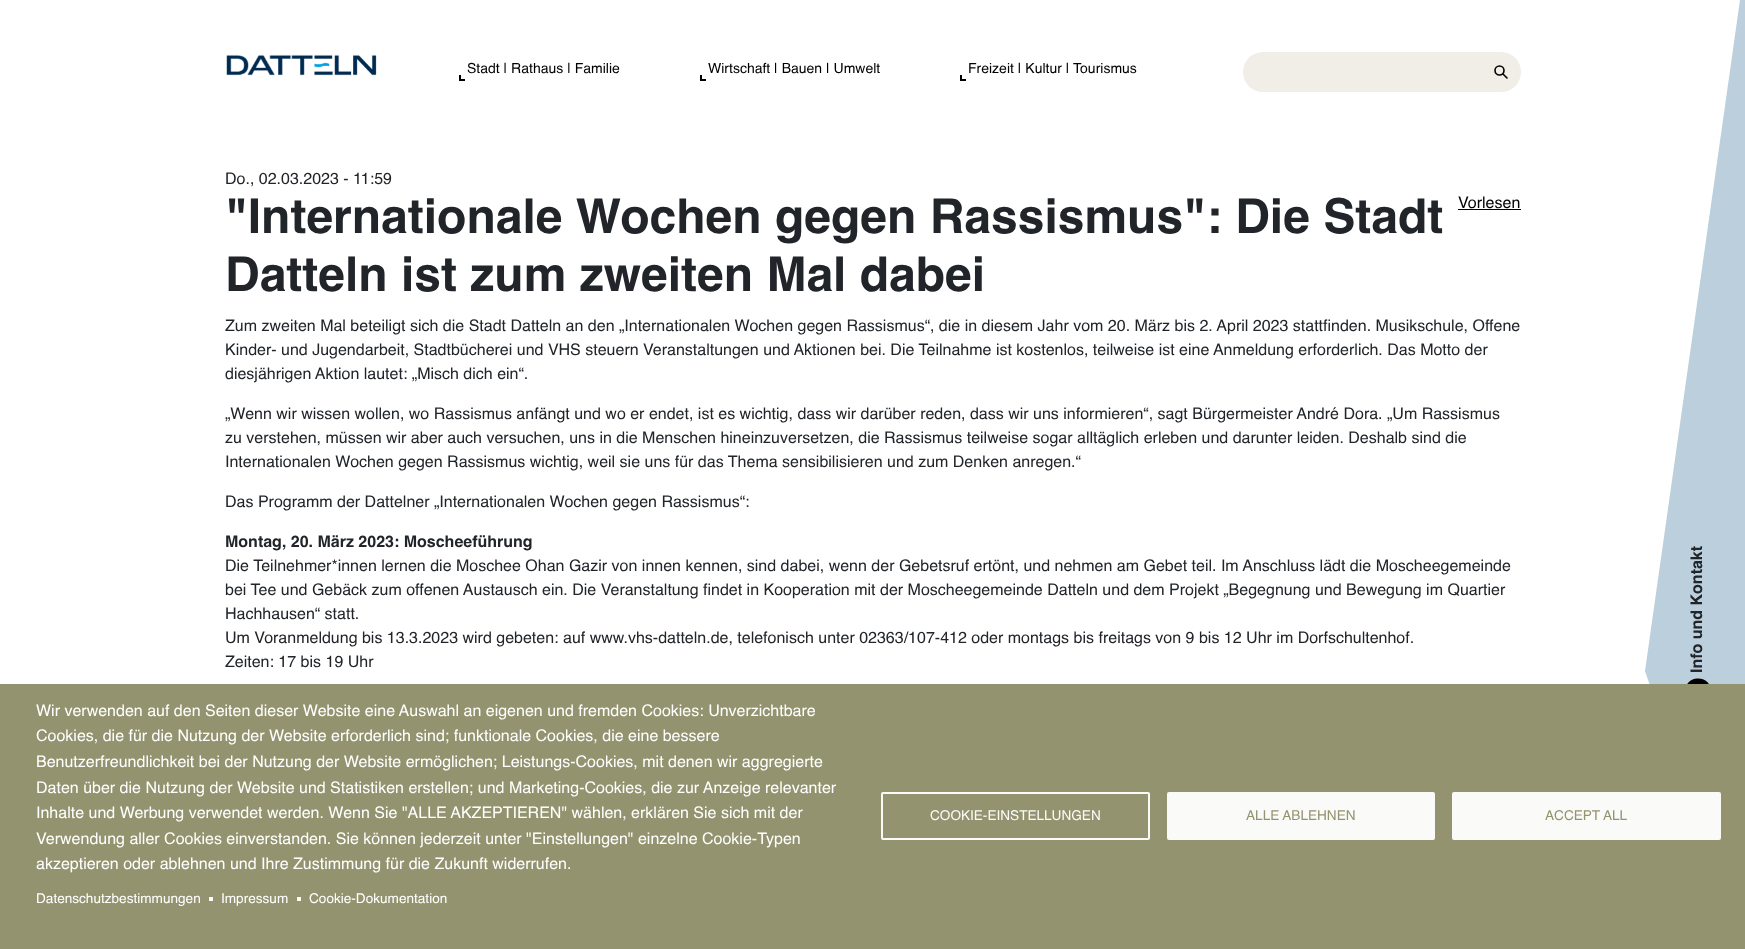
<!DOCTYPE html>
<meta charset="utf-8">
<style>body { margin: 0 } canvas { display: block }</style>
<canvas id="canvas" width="1745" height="949"></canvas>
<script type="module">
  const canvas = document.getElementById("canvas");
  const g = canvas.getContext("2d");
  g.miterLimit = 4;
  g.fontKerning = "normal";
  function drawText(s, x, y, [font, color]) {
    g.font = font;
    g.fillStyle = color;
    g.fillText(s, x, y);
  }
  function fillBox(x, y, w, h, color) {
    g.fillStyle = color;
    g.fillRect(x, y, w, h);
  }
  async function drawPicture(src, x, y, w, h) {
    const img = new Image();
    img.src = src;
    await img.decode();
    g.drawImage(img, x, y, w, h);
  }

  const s1 = ["14px Helvetica", "#000000"];
  const s2 = ["16px Helvetica", "#212529"];
  const s3 = ["bold 48px Helvetica", "#212529"];
  const s4 = ["16px Helvetica", "#000000"];
  const s5 = ["bold 16px Helvetica", "#212529"];
  const s6 = ["16px Helvetica", "#FFFFFF"];
  const s7 = ["13.6px Helvetica", "#FFFFFF"];
  const s8 = ["13.6px Helvetica", "#FAFAF8"];
  const s9 = ["13.6px Helvetica", "#949370"];

  fillBox(0, 0, 1745, 949, "#FFFFFF");
  await drawPicture("pic1.png", 226, 54, 151, 22);
  drawText("Stadt | Rathaus | Familie", 467, 73, s1);
  fillBox(459, 79, 6, 2, "#000000");
  fillBox(459, 75, 2, 6, "#000000");
  drawText("Wirtschaft | Bauen | Umwelt", 708, 73, s1);
  fillBox(700, 79, 6, 2, "#000000");
  fillBox(700, 75, 2, 6, "#000000");
  drawText("Freizeit | Kultur | Tourismus", 968, 73, s1);
  fillBox(960, 79, 6, 2, "#000000");
  fillBox(960, 75, 2, 6, "#000000");
  g.fillStyle = "#F1EEE8";
  g.beginPath();
  g.roundRect(1243, 52, 238, 40, [20, 0, 0, 20]);
  g.fill();
  g.beginPath();
  g.roundRect(1481, 52, 40, 40, [0, 20, 20, 0]);
  g.fill();
  g.beginPath();
  g.moveTo(1503, 74);
  g.lineTo(1507, 78);
  g.strokeStyle = "#000000";
  g.lineWidth = 1.6;
  g.lineCap = "round";
  g.stroke();
  g.beginPath();
  g.arc(1499.5, 70.5, 4.5, 0, Math.PI * 2);
  g.stroke();
  drawText("Do., 02.03.2023 - 11:59", 225, 184, s2);
  drawText("\"Internationale Wochen gegen Rassismus\": Die Stadt", 225, 233, s3);
  drawText("Datteln ist zum zweiten Mal dabei", 225, 291, s3);
  drawText("Vorlesen", 1458, 208, s4);
  fillBox(1458, 209, 63, 1, "#000000");
  drawText("Zum zweiten Mal beteiligt sich die Stadt Datteln an den „Internationalen Wochen gegen Rassismus“, die in diesem Jahr vom 20. März bis 2. April 2023 stattfinden. Musikschule, Offene", 225, 331, s2);
  drawText("Kinder- und Jugendarbeit, Stadtbücherei und VHS steuern Veranstaltungen und Aktionen bei. Die Teilnahme ist kostenlos, teilweise ist eine Anmeldung erforderlich. Das Motto der", 225, 355, s2);
  drawText("diesjährigen Aktion lautet: „Misch dich ein“.", 225, 379, s2);
  drawText("„Wenn wir wissen wollen, wo Rassismus anfängt und wo er endet, ist es wichtig, dass wir darüber reden, dass wir uns informieren“, sagt Bürgermeister André Dora. „Um Rassismus", 225, 419, s2);
  drawText("zu verstehen, müssen wir aber auch versuchen, uns in die Menschen hineinzuversetzen, die Rassismus teilweise sogar alltäglich erleben und darunter leiden. Deshalb sind die", 225, 443, s2);
  drawText("Internationalen Wochen gegen Rassismus wichtig, weil sie uns für das Thema sensibilisieren und zum Denken anregen.“", 225, 467, s2);
  drawText("Das Programm der Dattelner „Internationalen Wochen gegen Rassismus“:", 225, 507, s2);
  drawText("Montag, 20. März 2023: Moscheeführung", 225, 547, s5);
  drawText("Die Teilnehmer*innen lernen die Moschee Ohan Gazir von innen kennen, sind dabei, wenn der Gebetsruf ertönt, und nehmen am Gebet teil. Im Anschluss lädt die Moscheegemeinde", 225, 571, s2);
  drawText("bei Tee und Gebäck zum offenen Austausch ein. Die Veranstaltung findet in Kooperation mit der Moscheegemeinde Datteln und dem Projekt „Begegnung und Bewegung im Quartier", 225, 595, s2);
  drawText("Hachhausen“ statt.", 225, 619, s2);
  drawText("Um Voranmeldung bis 13.3.2023 wird gebeten: auf www.vhs-datteln.de, telefonisch unter 02363/107-412 oder montags bis freitags von 9 bis 12 Uhr im Dorfschultenhof.", 225, 643, s2);
  drawText("Zeiten: 17 bis 19 Uhr", 225, 667, s2);
  g.fillStyle = "#BBCFDC";
  g.beginPath();
  g.moveTo(1740, 0);
  g.lineTo(1645, 671);
  g.lineTo(1740, 949);
  g.lineTo(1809, 949);
  g.lineTo(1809, 0);
  g.closePath();
  g.fill();
  g.font = "bold 16px Helvetica";
  g.fillStyle = "#212529";
  g.save();
  g.translate(1702, 673);
  g.rotate(-90 * Math.PI / 180);
  g.fillText("Info und Kontakt", 0, 0);
  g.restore();
  g.fillStyle = "#000000";
  g.beginPath();
  g.moveTo(1699, 702.5);
  g.bezierCurveTo(1697, 702.5, 1694.5, 702.5, 1692, 701.5);
  g.bezierCurveTo(1680.5, 696.5, 1684, 679.5, 1697, 678.5);
  g.bezierCurveTo(1715, 677.5, 1715, 702.5, 1699, 702.5);
  g.closePath();
  g.fill();
  fillBox(0, 684, 1745, 265, "#949370");
  drawText("Wir verwenden auf den Seiten dieser Website eine Auswahl an eigenen und fremden Cookies: Unverzichtbare", 36, 716, s6);
  drawText("Cookies, die für die Nutzung der Website erforderlich sind; funktionale Cookies, die eine bessere", 36, 741, s6);
  drawText("Benutzerfreundlichkeit bei der Nutzung der Website ermöglichen; Leistungs-Cookies, mit denen wir aggregierte", 36, 767, s6);
  drawText("Daten über die Nutzung der Website und Statistiken erstellen; und Marketing-Cookies, die zur Anzeige relevanter", 36, 793, s6);
  drawText("Inhalte und Werbung verwendet werden. Wenn Sie \"ALLE AKZEPTIEREN\" wählen, erklären Sie sich mit der", 36, 818, s6);
  drawText("Verwendung aller Cookies einverstanden. Sie können jederzeit unter \"Einstellungen\" einzelne Cookie-Typen", 36, 844, s6);
  drawText("akzeptieren oder ablehnen und Ihre Zustimmung für die Zukunft widerrufen.", 36, 869, s6);
  drawText("Datenschutzbestimmungen", 36, 903, s7);
  fillBox(209, 897, 4, 4, "#FFFFFF");
  drawText("Impressum", 221, 903, s7);
  fillBox(297, 897, 4, 4, "#FFFFFF");
  drawText("Cookie-Dokumentation", 309, 903, s7);
  g.beginPath();
  g.roundRect(882, 793, 267, 46, 1);
  g.strokeStyle = "#FAFAF8";
  g.lineWidth = 2;
  g.stroke();
  drawText("COOKIE-EINSTELLUNGEN", 930, 820, s8);
  g.beginPath();
  g.roundRect(1168, 793, 266, 46, 1);
  g.fill();
  g.stroke();
  drawText("ALLE ABLEHNEN", 1246, 820, s9);
  g.fillStyle = "#FAFAF8";
  g.beginPath();
  g.roundRect(1453, 793, 267, 46, 1);
  g.fill();
  g.stroke();
  drawText("ACCEPT ALL", 1545, 820, s9);
</script>
